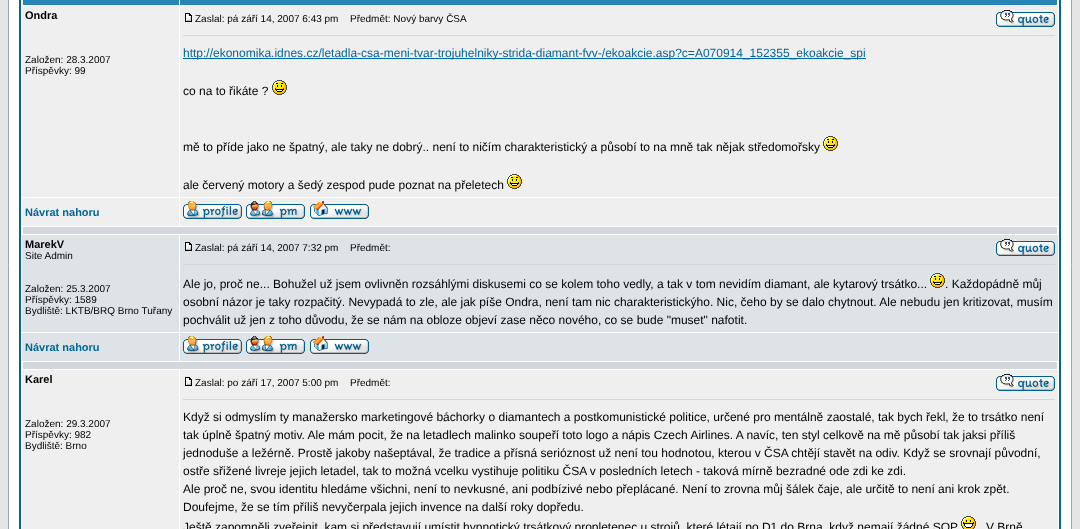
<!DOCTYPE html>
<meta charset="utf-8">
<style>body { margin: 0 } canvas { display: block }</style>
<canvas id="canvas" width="1080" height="529"></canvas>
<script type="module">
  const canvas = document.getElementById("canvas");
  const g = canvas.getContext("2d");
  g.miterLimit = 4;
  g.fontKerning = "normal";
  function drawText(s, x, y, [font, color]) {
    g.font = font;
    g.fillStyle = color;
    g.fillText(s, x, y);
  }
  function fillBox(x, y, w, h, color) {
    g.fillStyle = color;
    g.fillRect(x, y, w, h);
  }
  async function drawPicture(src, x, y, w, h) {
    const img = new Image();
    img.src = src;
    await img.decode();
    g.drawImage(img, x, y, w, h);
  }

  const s1 = ["bold 11px Liberation Sans", "#000000"];
  const s2 = ["10px Liberation Sans", "#000000"];
  const s3 = ["12px Liberation Sans", "#006699"];
  const s4 = ["12px Liberation Sans", "#000000"];
  const s5 = ["bold 11px Liberation Sans", "#006699"];

  fillBox(0, 0, 1080, 529, "#E5E5E5");
  g.fillStyle = "#FFFFFF";
  g.beginPath();
  g.rect(8.5, -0.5, 1063, 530);
  g.fill();
  g.strokeStyle = "#98AAB1";
  g.stroke();
  g.strokeStyle = "#006699";
  g.lineWidth = 2;
  g.strokeRect(20, -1, 1040, 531);
  fillBox(22, 0, 157, 5, "#2785B5");
  fillBox(22, 0, 1, 5, "#FFFFFF");
  fillBox(180, 0, 878, 5, "#2785B5");
  fillBox(1057, 0, 1, 5, "#FFFFFF");
  fillBox(22, 6, 157, 191, "#EFEFEF");
  drawText("Ondra", 25, 19, s1);
  drawText("Založen: 28.3.2007", 25, 63, s2);
  drawText("Příspěvky: 99", 25, 74, s2);
  fillBox(180, 6, 878, 191, "#EFEFEF");
  await drawPicture("pic1.png", 185, 13, 7, 9);
  drawText("Zaslal: pá září 14, 2007 6:43 pm", 195, 22, s2);
  drawText("Předmět: Nový barvy ČSA", 350, 22, s2);
  await drawPicture("pic2.png", 996, 10, 59, 17);
  fillBox(183, 35, 872, 1, "#D1D7DC");
  fillBox(183, 58, 683, 1, "#006699");
  drawText("http://ekonomika.idnes.cz/letadla-csa-meni-tvar-trojuhelniky-strida-diamant-fvv-/ekoakcie.asp?c=A070914_152355_ekoakcie_spi", 183, 57, s3);
  drawText("co na to řikáte ?", 183, 95, s4);
  await drawPicture("pic3.png", 272, 80, 15, 15);
  drawText("mě to příde jako ne špatný, ale taky ne dobrý.. není to ničím charakteristický a působí to na mně tak nějak středomořsky", 183, 151, s4);
  await drawPicture("pic3.png", 823, 136, 15, 15);
  drawText("ale červený motory a šedý zespod pude poznat na přeletech", 183, 189, s4);
  await drawPicture("pic3.png", 507, 174, 15, 15);
  fillBox(22, 198, 157, 28, "#EFEFEF");
  drawText("Návrat nahoru", 25, 216, s5);
  fillBox(180, 198, 878, 28, "#EFEFEF");
  await drawPicture("pic4.png", 183, 201, 59, 18);
  await drawPicture("pic5.png", 246, 201, 59, 18);
  await drawPicture("pic6.png", 310, 201, 59, 18);
  fillBox(23, 227, 1034, 7, "#D1D7DC");
  fillBox(22, 235, 157, 97, "#DEE3E7");
  drawText("MarekV", 25, 248, s1);
  drawText("Site Admin", 25, 259, s2);
  drawText("Založen: 25.3.2007", 25, 292, s2);
  drawText("Příspěvky: 1589", 25, 303, s2);
  drawText("Bydliště: LKTB/BRQ Brno Tuřany", 25, 314, s2);
  fillBox(180, 235, 878, 97, "#DEE3E7");
  await drawPicture("pic7.png", 185, 242, 7, 9);
  drawText("Zaslal: pá září 14, 2007 7:32 pm", 195, 251, s2);
  drawText("Předmět:", 350, 251, s2);
  await drawPicture("pic8.png", 996, 239, 59, 17);
  fillBox(183, 264, 872, 1, "#D1D7DC");
  drawText("Ale jo, proč ne... Bohužel už jsem ovlivněn rozsáhlými diskusemi co se kolem toho vedly, a tak v tom nevidím diamant, ale kytarový trsátko...", 183, 288, s4);
  await drawPicture("pic9.png", 930, 273, 15, 15);
  drawText(". Každopádně můj", 945, 288, s4);
  drawText("osobní názor je taky rozpačitý. Nevypadá to zle, ale jak píše Ondra, není tam nic charakteristickýho. Nic, čeho by se dalo chytnout. Ale nebudu jen kritizovat, musím", 183, 306, s4);
  drawText("pochválit už jen z toho důvodu, že se nám na obloze objeví zase něco nového, co se bude \"muset\" nafotit.", 183, 324, s4);
  fillBox(22, 333, 157, 28, "#DEE3E7");
  drawText("Návrat nahoru", 25, 351, s5);
  fillBox(180, 333, 878, 28, "#DEE3E7");
  await drawPicture("pic10.png", 183, 336, 59, 18);
  await drawPicture("pic11.png", 246, 336, 59, 18);
  await drawPicture("pic12.png", 310, 336, 59, 18);
  fillBox(23, 362, 1034, 7, "#D1D7DC");
  fillBox(22, 370, 157, 159, "#EFEFEF");
  drawText("Karel", 25, 383, s1);
  drawText("Založen: 29.3.2007", 25, 427, s2);
  drawText("Příspěvky: 982", 25, 438, s2);
  drawText("Bydliště: Brno", 25, 449, s2);
  fillBox(180, 370, 878, 159, "#EFEFEF");
  await drawPicture("pic1.png", 185, 377, 7, 9);
  drawText("Zaslal: po září 17, 2007 5:00 pm", 195, 386, s2);
  drawText("Předmět:", 350, 386, s2);
  await drawPicture("pic2.png", 996, 374, 59, 17);
  fillBox(183, 399, 872, 1, "#D1D7DC");
  drawText("Když si odmyslím ty manažersko marketingové báchorky o diamantech a postkomunistické politice, určené pro mentálně zaostalé, tak bych řekl, že to trsátko není", 183, 421, s4);
  drawText("tak úplně špatný motiv. Ale mám pocit, že na letadlech malinko soupeří toto logo a nápis Czech Airlines. A navíc, ten styl celkově na mě působí tak jaksi příliš", 183, 439, s4);
  drawText("jednoduše a ležérně. Prostě jakoby našeptával, že tradice a přísná serióznost už není tou hodnotou, kterou v ČSA chtějí stavět na odiv. Když se srovnají původní,", 183, 457, s4);
  drawText("ostře sřižené livreje jejich letadel, tak to možná vcelku vystihuje politiku ČSA v posledních letech - taková mírně bezradné ode zdi ke zdi.", 183, 475, s4);
  drawText("Ale proč ne, svou identitu hledáme všichni, není to nevkusné, ani podbízivé nebo přeplácané. Není to zrovna můj šálek čaje, ale určitě to není ani krok zpět.", 183, 493, s4);
  drawText("Doufejme, že se tím příliš nevyčerpala jejich invence na další roky dopředu.", 183, 511, s4);
  drawText("Ještě zapomněli zveřejnit, kam si představují umístit hypnotický trsátkový propletenec u strojů, které létají po D1 do Brna, když nemají žádné SOP", 183, 531, s4);
  await drawPicture("pic13.png", 961, 516, 15, 13);
  drawText("V Brně", 986, 531, s4);
</script>
